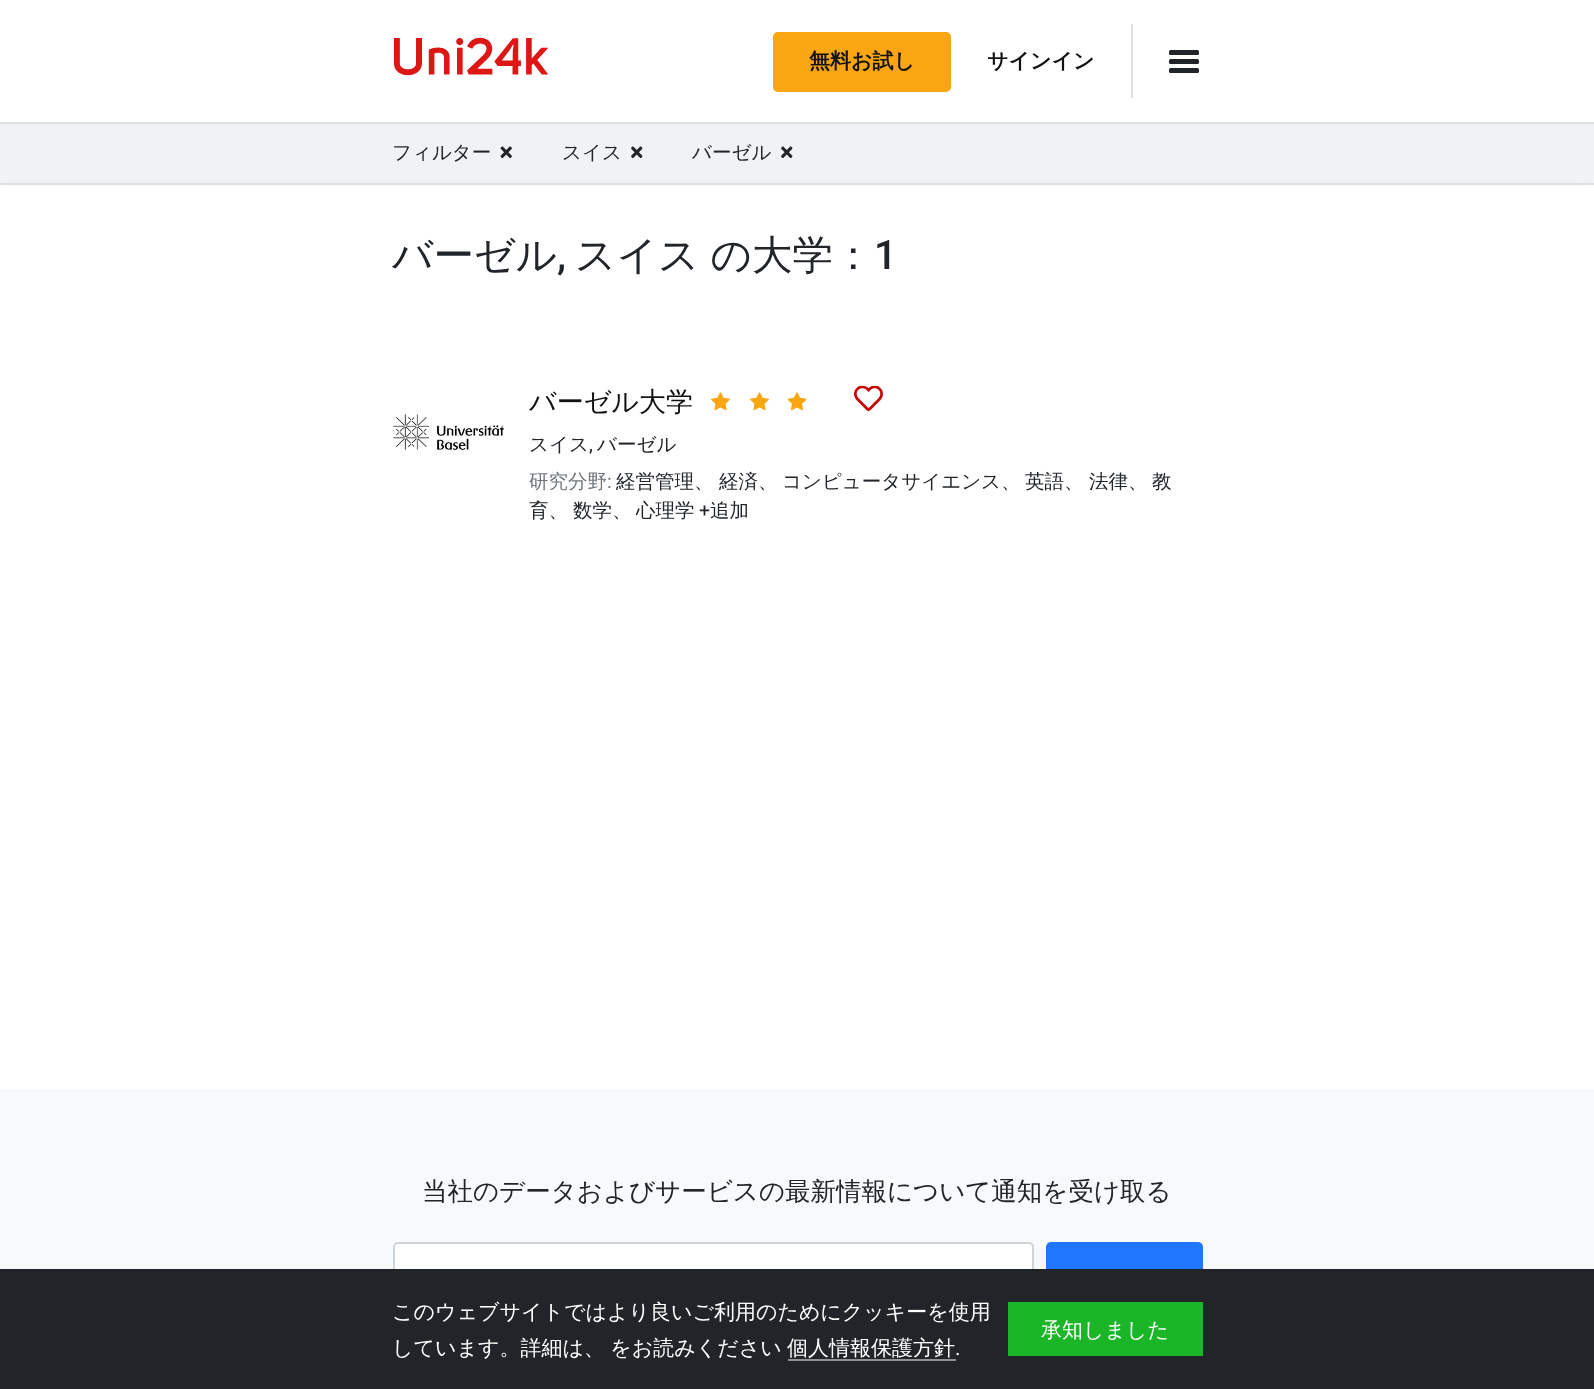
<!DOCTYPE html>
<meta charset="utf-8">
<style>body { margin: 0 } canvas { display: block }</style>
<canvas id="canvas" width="1594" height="1389"></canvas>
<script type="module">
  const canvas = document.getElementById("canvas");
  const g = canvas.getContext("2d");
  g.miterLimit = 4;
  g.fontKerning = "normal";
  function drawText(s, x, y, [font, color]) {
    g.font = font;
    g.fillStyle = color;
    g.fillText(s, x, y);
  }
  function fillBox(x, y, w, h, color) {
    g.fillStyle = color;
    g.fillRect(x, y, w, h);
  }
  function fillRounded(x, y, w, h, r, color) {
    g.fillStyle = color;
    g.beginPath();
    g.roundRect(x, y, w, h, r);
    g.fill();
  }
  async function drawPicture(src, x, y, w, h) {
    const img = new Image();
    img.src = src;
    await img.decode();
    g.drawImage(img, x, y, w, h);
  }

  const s1 = ["bold 21px WenQuanYi Zen Hei", "#111213"];
  const s2 = ["500 19.5px WenQuanYi Zen Hei", "#212529"];
  const s3 = ["500 40.5px WenQuanYi Zen Hei", "#212529"];
  const s4 = ["500 40.5px Roboto", "#212529"];
  const s5 = ["500 27px WenQuanYi Zen Hei", "#111213"];
  const s6 = ["19.5px Roboto", "#212529"];
  const s7 = ["500 19.5px WenQuanYi Zen Hei", "#70757A"];
  const s8 = ["19.5px Roboto", "#70757A"];
  const s9 = ["500 25.5px WenQuanYi Zen Hei", "#212529"];
  const s10 = ["500 21px WenQuanYi Zen Hei", "#FFFFFF"];
  const s11 = ["21px Roboto", "#FFFFFF"];

  fillBox(0, 0, 1594, 1389, "#FFFFFF");
  fillBox(0, 183, 1594, 2, "#DEE2E6");
  await drawPicture("pic1.png", 393, 37, 156, 39);
  fillRounded(773, 32, 178, 60, 5, "#FAA613");
  drawText("無料お試し", 809, 68, s1);
  drawText("サインイン", 987, 68, s1);
  fillBox(1131, 24, 2, 74, "#DEE2E6");
  fillRounded(1169, 59, 30, 5, 1.5, "#212529");
  fillRounded(1169, 50, 30, 5, 1.5, "#212529");
  fillRounded(1169, 68, 30, 5, 1.5, "#212529");
  g.fillStyle = "rgba(222, 226, 230, 0.55)";
  g.filter = "blur(4.5px)";
  g.beginPath();
  g.rect(9, 140, 1577, 43);
  g.fill();
  g.filter = "none";
  fillBox(0, 124, 1594, 59, "#F0F2F3");
  fillBox(0, 122, 1594, 2, "#DEE2E6");
  drawText("フィルター", 392, 159, s2);
  await drawPicture("pic2.png", 500, 146, 12, 12);
  drawText("スイス", 562, 159, s2);
  await drawPicture("pic3.png", 631, 146, 12, 12);
  drawText("バーゼル", 692, 159, s2);
  await drawPicture("pic3.png", 781, 146, 12, 12);
  drawText("バーゼル", 392, 269, s3);
  drawText(",", 557, 269, s4);
  g.wordSpacing = "-1px";
  drawText("スイス の大学：", 575, 269, s3);
  g.wordSpacing = "0px";
  drawText("1", 874, 269, s4);
  await drawPicture("pic4.png", 393, 414, 111, 37);
  drawText("バーゼル大学", 529, 411, s5);
  await drawPicture("pic5.png", 711, 392, 19, 19);
  await drawPicture("pic6.png", 750, 392, 19, 19);
  await drawPicture("pic7.png", 787, 392, 20, 19);
  await drawPicture("pic8.png", 854, 385, 29, 26);
  drawText("スイス", 529, 451, s2);
  drawText(",", 589, 451, s6);
  drawText("バーゼル", 597, 451, s2);
  drawText("研究分野", 529, 488, s7);
  drawText(":", 607, 488, s8);
  drawText("経営管理、", 616, 488, s2);
  drawText("経済、", 719, 488, s2);
  drawText("コンピュータサイエンス、", 782, 488, s2);
  drawText("英語、", 1025, 488, s2);
  drawText("法律、", 1089, 488, s2);
  drawText("教", 1152, 488, s2);
  drawText("育、", 529, 517, s2);
  drawText("数学、", 573, 517, s2);
  drawText("心理学", 636, 517, s2);
  drawText("+", 699, 517, s6);
  drawText("追加", 710, 517, s2);
  fillBox(0, 1089, 1594, 180, "#F8F9FA");
  drawText("当社のデータおよびサービスの最新情報について通知を受け取る", 422, 1200, s9);
  g.fillStyle = "#FFFFFF";
  g.beginPath();
  g.roundRect(394, 1243, 639, 61, 4);
  g.fill();
  g.strokeStyle = "#CED4DA";
  g.lineWidth = 2;
  g.stroke();
  fillRounded(1046, 1242, 157, 63, 5, "#2176FF");
  fillBox(0, 1269, 1594, 120, "#212529");
  drawText("このウェブサイトではより良いご利用のためにクッキーを使用", 392, 1319, s10);
  g.wordSpacing = "-1px";
  drawText("しています。詳細は、 をお読みください", 392, 1355, s10);
  g.wordSpacing = "0px";
  drawText("個人情報保護方針", 787, 1355, s10);
  fillBox(788, 1359, 168, 2, "#909294");
  drawText(".", 955, 1355, s11);
  fillBox(1008, 1302, 195, 54, "#1BB627");
  drawText("承知しました", 1041, 1337, s10);
</script>
